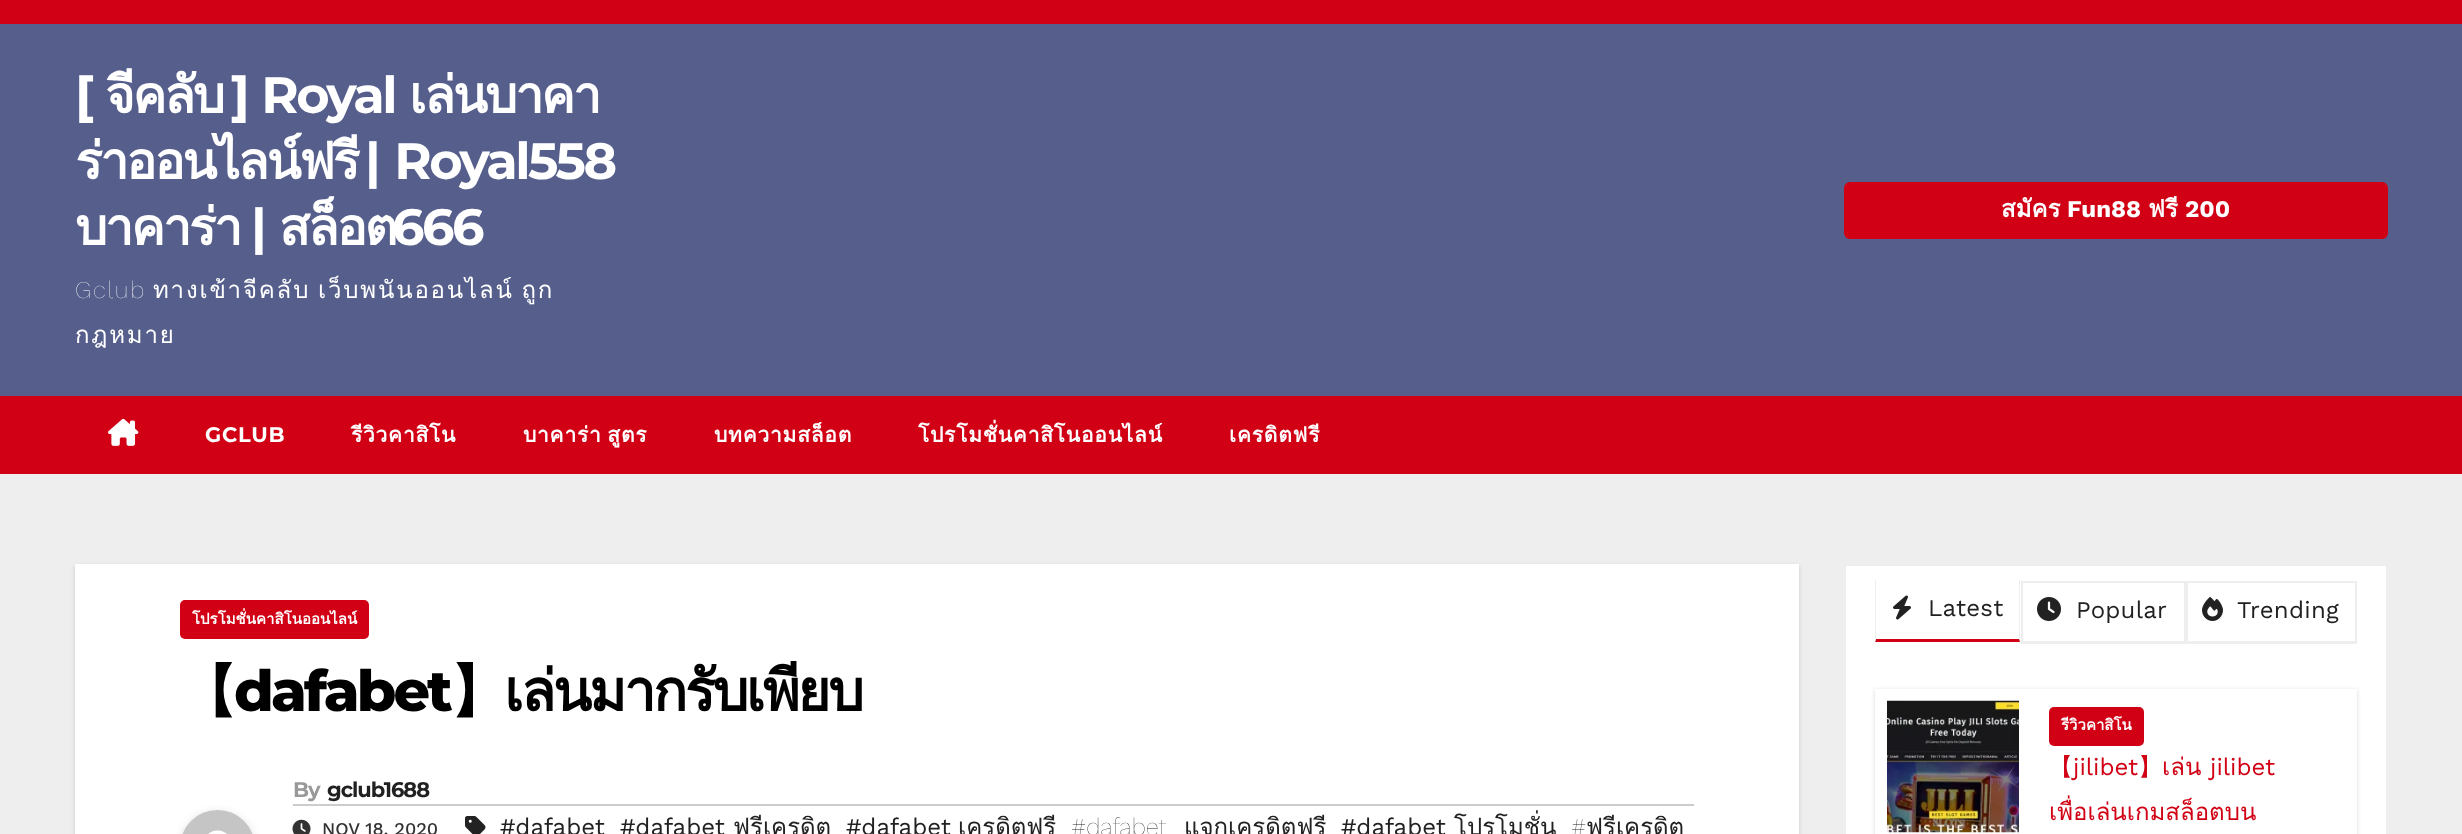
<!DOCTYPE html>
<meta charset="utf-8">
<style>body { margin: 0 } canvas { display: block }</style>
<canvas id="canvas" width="2462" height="834"></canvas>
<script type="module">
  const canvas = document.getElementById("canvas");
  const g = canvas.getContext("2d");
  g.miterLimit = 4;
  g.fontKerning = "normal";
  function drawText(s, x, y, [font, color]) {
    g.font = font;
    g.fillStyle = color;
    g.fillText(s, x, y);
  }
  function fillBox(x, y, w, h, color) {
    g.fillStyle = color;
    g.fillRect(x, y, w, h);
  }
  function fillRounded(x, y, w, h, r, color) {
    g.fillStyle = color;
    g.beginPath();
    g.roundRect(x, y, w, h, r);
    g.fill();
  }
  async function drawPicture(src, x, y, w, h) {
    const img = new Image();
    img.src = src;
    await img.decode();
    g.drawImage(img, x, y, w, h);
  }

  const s1 = ["bold 51px Montserrat", "#FFFFFF"];
  const s2 = ["bold 51px Loma", "#FFFFFF"];
  const s3 = ["100 24px Work Sans", "#FFFFFF"];
  const s4 = ["24px Loma", "#FFFFFF"];
  const s5 = ["bold 24px Loma", "#FFFFFF"];
  const s6 = ["bold 24px Work Sans", "#FFFFFF"];
  const s7 = ["bold 21px Montserrat", "#FFFFFF"];
  const s8 = ["bold 21px Loma", "#FFFFFF"];
  const s9 = ["bold 15px Loma", "#FFFFFF"];
  const s10 = ["bold 57px WenQuanYi Zen Hei", "#000000"];
  const s11 = ["800 57px Montserrat", "#000000"];
  const s12 = ["bold 57px Loma", "#000000"];
  const s13 = ["bold 21px Montserrat", "#999999"];
  const s14 = ["bold 21px Montserrat", "#212121"];
  const s15 = ["500 18px Work Sans", "#333333"];
  const s16 = ["24px Work Sans", "#212121"];
  const s17 = ["24px Loma", "#212121"];
  const s18 = ["100 24px Work Sans", "#212121"];
  const s19 = ["500 24px WenQuanYi Zen Hei", "#D10014"];
  const s20 = ["24px Work Sans", "#D10014"];
  const s21 = ["24px Loma", "#D10014"];

  fillBox(0, 0, 2462, 834, "#EEEEEE");
  fillBox(0, 0, 2462, 24, "#D10014");
  fillBox(0, 24, 2462, 372, "#565F8C");
  g.letterSpacing = "-2.5px";
  drawText("[", 75, 113, s1);
  drawText("จีคลับ", 105, 113, s2);
  drawText("เล่นบาคา", 409, 113, s2);
  g.wordSpacing = "2px";
  drawText("] Royal", 231, 113, s1);
  g.wordSpacing = "0px";
  drawText("ร่าออนไลน์ฟรี", 75, 179, s2);
  g.wordSpacing = "4px";
  drawText("| Royal558", 365, 179, s1);
  g.wordSpacing = "0px";
  drawText("บาคาร่า", 75, 245, s2);
  drawText("|", 251, 245, s1);
  drawText("สล็อต", 279, 245, s2);
  drawText("666", 392, 245, s1);
  g.letterSpacing = "1.8px";
  drawText("Gclub", 75, 298, s3);
  g.wordSpacing = "-2px";
  drawText("ทางเข้าจีคลับ เว็บพนันออนไลน์ ถูก", 153, 298, s4);
  g.wordSpacing = "0px";
  drawText("กฎหมาย", 75, 343, s4);
  fillRounded(1844, 182, 544, 57, 6, "#D10014");
  g.letterSpacing = "0px";
  drawText("สมัคร", 2001, 217, s5);
  drawText("Fun88", 2067, 217, s6);
  drawText("ฟรี", 2148, 217, s5);
  drawText("200", 2185, 217, s6);
  fillBox(0, 396, 2462, 78, "#D10014");
  await drawPicture("pic1.png", 108, 418, 31, 28);
  g.letterSpacing = "0.75px";
  drawText("GCLUB", 205, 442, s7);
  drawText("รีวิวคาสิโน", 351, 442, s8);
  g.wordSpacing = "-2px";
  drawText("บาคาร่า สูตร", 523, 442, s8);
  g.wordSpacing = "0px";
  drawText("บทความสล็อต", 714, 442, s8);
  drawText("โปรโมชั่นคาสิโนออนไลน์", 918, 442, s8);
  drawText("เครดิตฟรี", 1229, 442, s8);
  g.fillStyle = "rgba(0, 0, 0, 0.15)";
  g.filter = "blur(2px)";
  g.beginPath();
  g.rect(75, 566, 1724, 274);
  g.fill();
  g.filter = "none";
  fillBox(75, 564, 1724, 270, "#FFFFFF");
  fillRounded(180, 600, 189, 39, 5, "#D10014");
  g.letterSpacing = "0px";
  drawText("โปรโมชั่นคาสิโนออนไลน์", 192, 624, s9);
  g.letterSpacing = "-2.8px";
  drawText("【", 180, 711, s10);
  drawText("dafabet", 234, 711, s11);
  drawText("】", 450, 711, s10);
  drawText("เล่นมากรับเพียบ", 504, 711, s12);
  g.fillStyle = "rgba(0, 0, 0, 0.12)";
  g.filter = "blur(4px)";
  g.beginPath();
  g.roundRect(180, 812, 75, 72, 37.5);
  g.fill();
  g.filter = "none";
  await drawPicture("pic2.png", 182, 810, 71, 24);
  fillBox(293, 804, 1401, 2, "#CCCCCC");
  g.letterSpacing = "-1px";
  drawText("By", 293, 797, s13);
  drawText("gclub1688", 327, 797, s14);
  await drawPicture("pic3.png", 292, 819, 19, 15);
  g.letterSpacing = "0px";
  drawText("NOV 18, 2020", 322, 835, s15);
  await drawPicture("pic4.png", 465, 816, 21, 18);
  drawText("#dafabet", 500, 835, s16);
  drawText("#dafabet", 620, 835, s16);
  drawText("ฟรีเครดิต", 733, 835, s17);
  drawText("#dafabet", 846, 835, s16);
  drawText("เครดิตฟรี", 958, 835, s17);
  drawText("#dafabet", 1071, 835, s18);
  drawText("แจกเครดิตฟรี", 1184, 835, s17);
  drawText("#dafabet", 1341, 835, s16);
  drawText("โปรโมชั่น", 1454, 835, s17);
  drawText("#", 1571, 835, s18);
  drawText("ฟรีเครดิต", 1586, 835, s17);
  fillBox(1846, 566, 540, 268, "#FFFFFF");
  g.fillStyle = "#EEEEEE";
  g.beginPath();
  g.moveTo(2020, 580);
  g.lineTo(2020, 642);
  g.lineTo(2019, 639);
  g.lineTo(2019, 580);
  g.closePath();
  g.fill();
  g.fillStyle = "#D10014";
  g.beginPath();
  g.moveTo(2020, 642);
  g.lineTo(1875, 642);
  g.lineTo(1876, 639);
  g.lineTo(2019, 639);
  g.closePath();
  g.fill();
  g.fillStyle = "#EEEEEE";
  g.beginPath();
  g.moveTo(1875, 642);
  g.lineTo(1875, 580);
  g.lineTo(1876, 580);
  g.lineTo(1876, 639);
  g.closePath();
  g.fill();
  await drawPicture("pic5.png", 1893, 595, 18, 25);
  g.letterSpacing = "0.25px";
  drawText("Latest", 1928, 616, s16);
  fillBox(2021, 581, 336, 2, "#EEEEEE");
  fillBox(2184, 581, 2, 63, "#EEEEEE");
  fillBox(2021, 641, 165, 3, "#EEEEEE");
  fillBox(2021, 581, 2, 63, "#EEEEEE");
  await drawPicture("pic6.png", 2037, 597, 24, 24);
  drawText("Popular", 2076, 618, s16);
  fillBox(2355, 581, 2, 63, "#EEEEEE");
  fillBox(2186, 641, 171, 3, "#EEEEEE");
  fillBox(2186, 581, 2, 63, "#EEEEEE");
  await drawPicture("pic7.png", 2202, 597, 21, 24);
  drawText("Trending", 2237, 618, s16);
  g.save();
  g.beginPath();
  g.moveTo(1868, 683);
  g.lineTo(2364, 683);
  g.lineTo(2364, 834);
  g.lineTo(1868, 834);
  g.closePath();
  g.moveTo(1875, 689);
  g.lineTo(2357, 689);
  g.lineTo(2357, 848);
  g.lineTo(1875, 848);
  g.closePath();
  g.clip("evenodd");
  g.fillStyle = "rgba(0, 0, 0, 0.15)";
  g.filter = "blur(2px)";
  g.beginPath();
  g.rect(1875, 690, 482, 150);
  g.fill();
  g.filter = "none";
  g.restore();
  await drawPicture("pic8.png", 1887, 700, 132, 133);
  fillRounded(2049, 707, 95, 39, 5, "#D10014");
  g.letterSpacing = "0px";
  drawText("รีวิวคาสิโน", 2061, 730, s9);
  drawText("【", 2049, 775, s19);
  drawText("jilibet", 2073, 775, s20);
  drawText("】", 2138, 775, s19);
  drawText("เล่น", 2162, 775, s21);
  drawText("jilibet", 2210, 775, s20);
  g.save();
  g.beginPath();
  g.rect(2049, 746, 266, 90);
  g.clip();
  drawText("เพื่อเล่นเกมสล็อตบน", 2049, 820, s21);
  g.restore();
</script>
